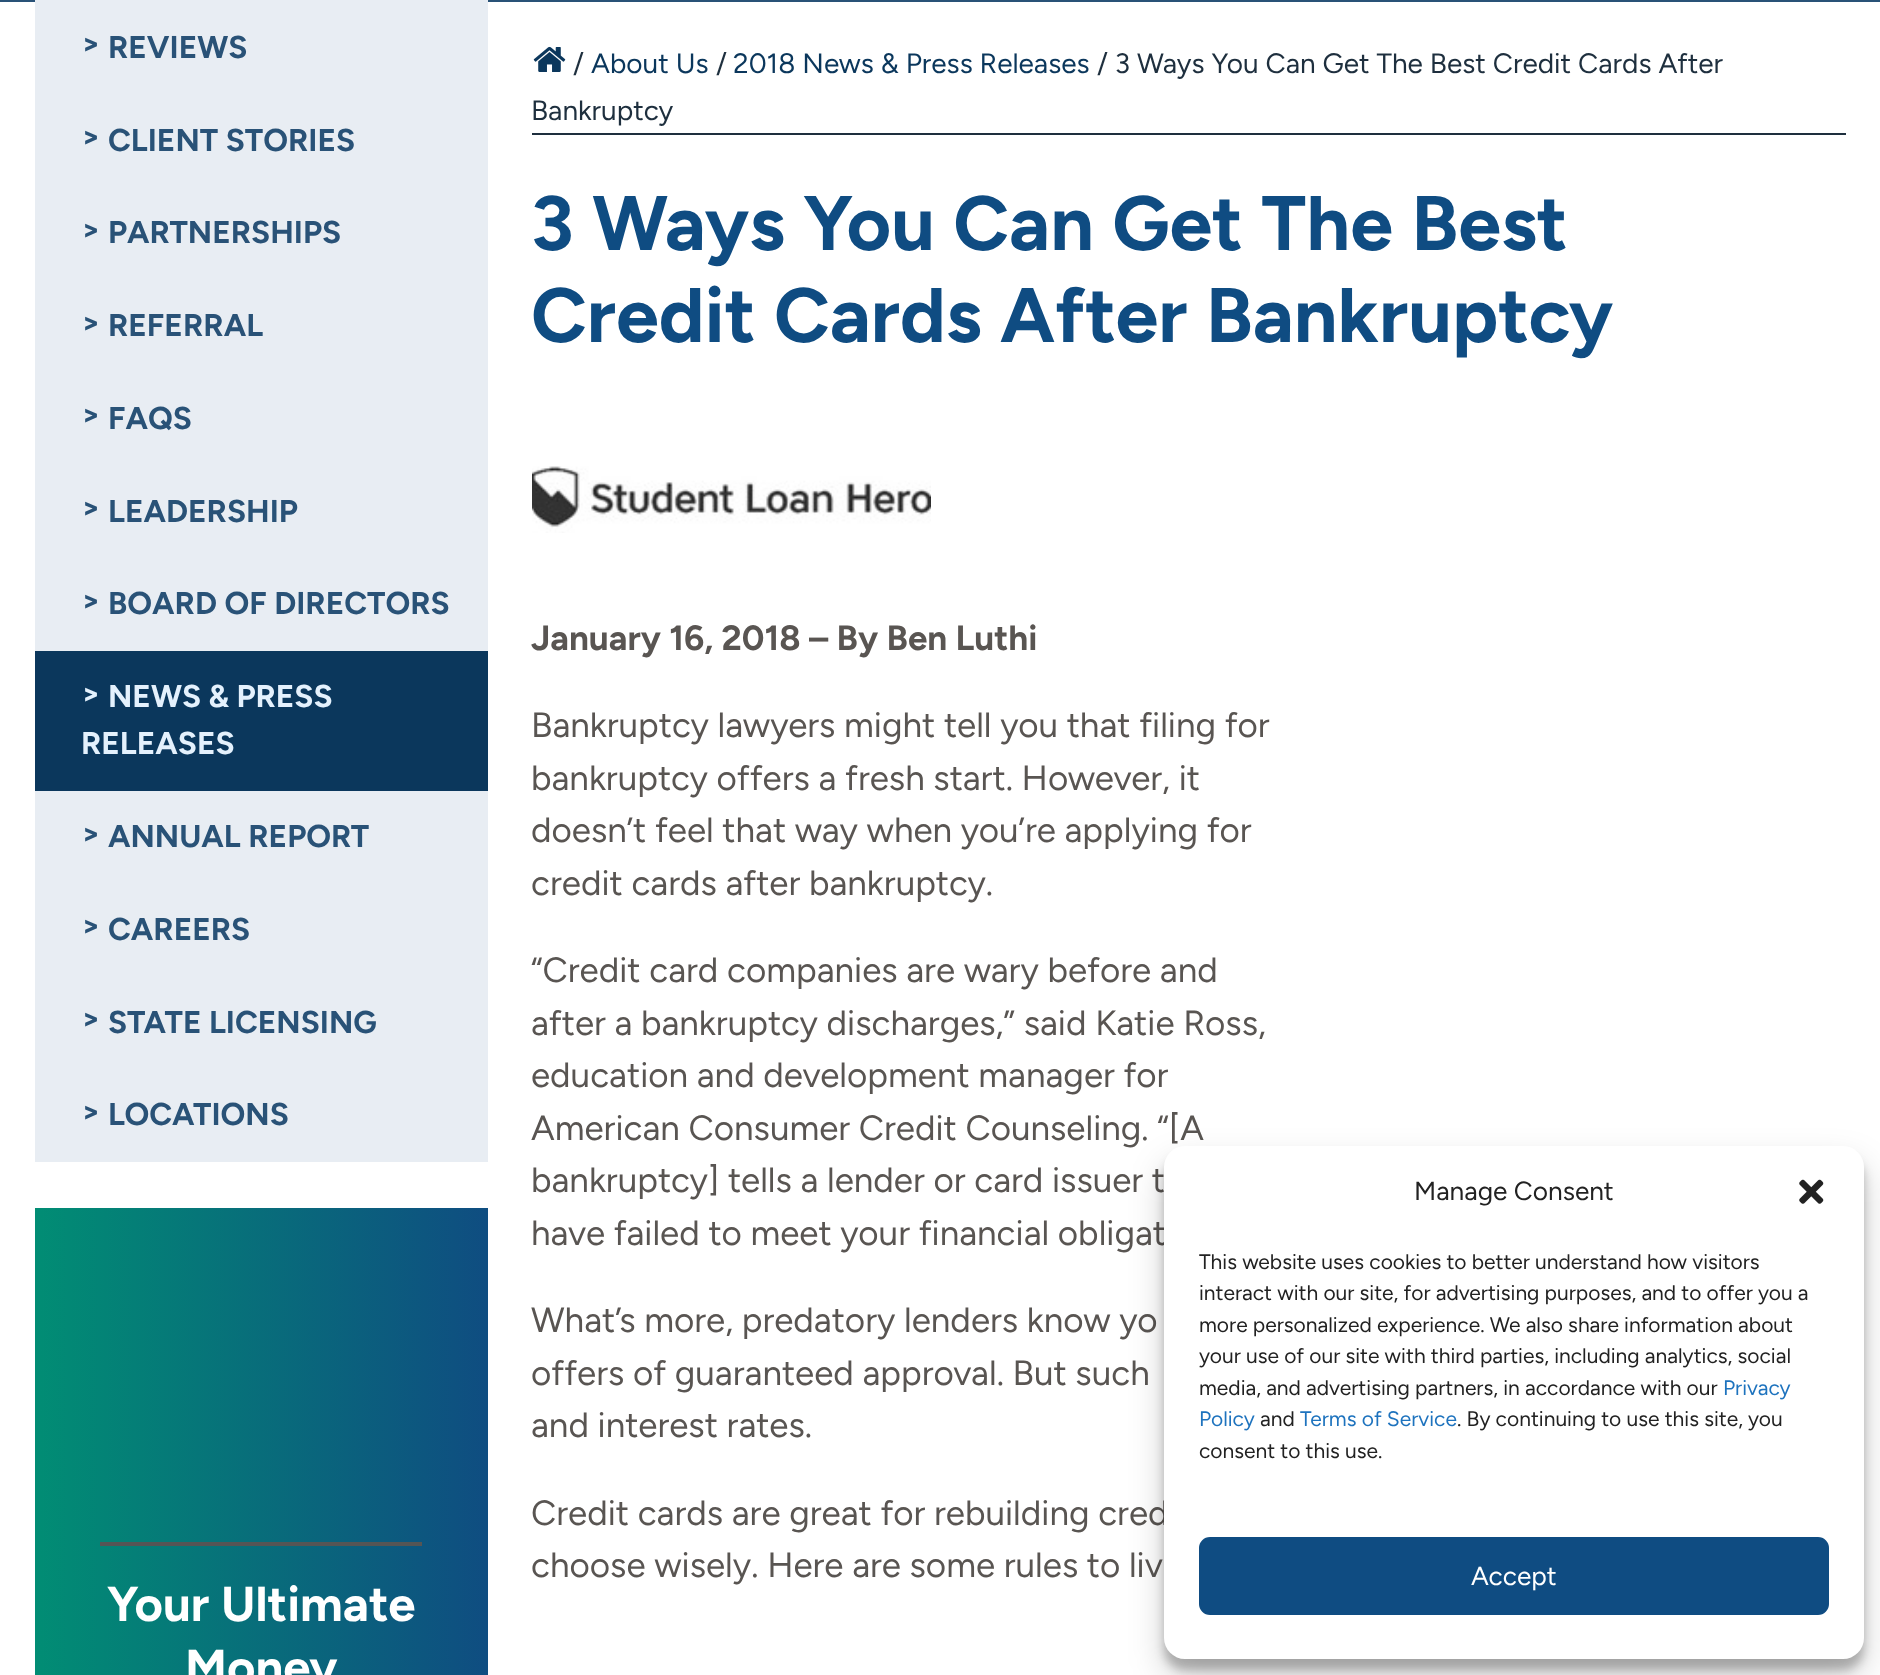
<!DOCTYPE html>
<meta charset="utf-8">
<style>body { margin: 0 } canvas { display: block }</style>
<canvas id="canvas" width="1880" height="1675"></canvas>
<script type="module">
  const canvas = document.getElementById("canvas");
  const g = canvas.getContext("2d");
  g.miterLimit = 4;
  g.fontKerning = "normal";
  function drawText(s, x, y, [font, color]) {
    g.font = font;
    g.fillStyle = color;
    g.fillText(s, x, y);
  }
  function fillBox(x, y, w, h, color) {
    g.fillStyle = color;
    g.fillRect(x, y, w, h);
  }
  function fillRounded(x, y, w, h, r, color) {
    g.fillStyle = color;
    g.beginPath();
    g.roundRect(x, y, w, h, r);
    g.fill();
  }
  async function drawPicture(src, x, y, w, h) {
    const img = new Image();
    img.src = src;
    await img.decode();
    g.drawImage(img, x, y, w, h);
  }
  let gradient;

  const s1 = ["bold 31.5px Figtree", "#295277"];
  const s2 = ["bold 31.5px Figtree", "#E4F1FD"];
  const s3 = ["bold 49px Figtree", "#FFFFFF"];
  const s4 = ["28px Figtree", "#1E2F3E"];
  const s5 = ["28px Figtree", "#0B375C"];
  const s6 = ["bold 77px Figtree", "#0F4C82"];
  const s7 = ["bold 35px Figtree", "#595552"];
  const s8 = ["35px Figtree", "#595552"];
  const s9 = ["26.25px Figtree", "#222222"];
  const s10 = ["21px Figtree", "#222222"];
  const s11 = ["21px Figtree", "#1E73BE"];
  const s12 = ["26.25px Figtree", "#FFFFFF"];

  fillBox(0, 0, 1880, 1675, "#FFFFFF");
  fillBox(0, 0, 1880, 2, "#295277");
  fillBox(35, 0, 453, 1162, "#E8EDF3");
  drawText(">", 81, 54, s1);
  drawText("REVIEWS", 108, 58, s1);
  drawText(">", 81, 147, s1);
  drawText("CLIENT STORIES", 108, 151, s1);
  drawText(">", 81, 240, s1);
  drawText("PARTNERSHIPS", 108, 243, s1);
  drawText(">", 81, 333, s1);
  drawText("REFERRAL", 108, 336, s1);
  drawText(">", 81, 425, s1);
  drawText("FAQS", 108, 429, s1);
  drawText(">", 81, 518, s1);
  drawText("LEADERSHIP", 108, 522, s1);
  drawText(">", 81, 611, s1);
  drawText("BOARD OF DIRECTORS", 108, 614, s1);
  fillBox(35, 651, 453, 140, "#0B375C");
  drawText(">", 81, 704, s2);
  drawText("NEWS & PRESS", 108, 707, s2);
  drawText("RELEASES", 81, 754, s2);
  drawText(">", 81, 844, s1);
  drawText("ANNUAL REPORT", 108, 847, s1);
  drawText(">", 81, 936, s1);
  drawText("CAREERS", 108, 940, s1);
  drawText(">", 81, 1029, s1);
  drawText("STATE LICENSING", 108, 1033, s1);
  drawText(">", 81, 1122, s1);
  drawText("LOCATIONS", 108, 1125, s1);
  gradient = g.createLinearGradient(35, 1553, 488, 1553);
  gradient.addColorStop(0, "#018D74");
  gradient.addColorStop(1, "#0F4D81");
  g.fillStyle = gradient;
  g.fillRect(35, 1208, 453, 467);
  fillBox(100, 1542, 322, 4, "#555555");
  drawText("Your Ultimate", 107, 1621, s3);
  drawText("Money", 185, 1684, s3);
  fillBox(532, 133, 1314, 2, "#1E2F3E");
  await drawPicture("pic1.png", 533, 46, 33, 26);
  drawText("/", 573, 73, s4);
  drawText("About Us", 591, 73, s5);
  drawText("/", 716, 73, s4);
  drawText("2018 News & Press Releases", 733, 73, s5);
  drawText("/ 3 Ways You Can Get The Best Credit Cards After", 1097, 73, s4);
  drawText("Bankruptcy", 531, 120, s4);
  drawText("3 Ways You Can Get The Best", 531, 250, s6);
  drawText("Credit Cards After Bankruptcy", 531, 342, s6);
  await drawPicture("pic2.png", 532, 466, 399, 67);
  drawText("January 16, 2018 – By Ben Luthi", 531, 650, s7);
  drawText("Bankruptcy lawyers might tell you that filing for", 531, 737, s8);
  drawText("bankruptcy offers a fresh start. However, it", 531, 790, s8);
  drawText("doesn’t feel that way when you’re applying for", 531, 842, s8);
  drawText("credit cards after bankruptcy.", 531, 895, s8);
  drawText("“Credit card companies are wary before and", 531, 982, s8);
  drawText("after a bankruptcy discharges,” said Katie Ross,", 531, 1035, s8);
  drawText("education and development manager for", 531, 1087, s8);
  drawText("American Consumer Credit Counseling. “[A", 531, 1140, s8);
  drawText("bankruptcy] tells a lender or card issuer t", 531, 1192, s8);
  drawText("have failed to meet your financial obligat", 531, 1245, s8);
  drawText("What’s more, predatory lenders know yo", 531, 1332, s8);
  drawText("offers of guaranteed approval. But such", 531, 1385, s8);
  drawText("and interest rates.", 531, 1437, s8);
  drawText("Credit cards are great for rebuilding cred", 531, 1525, s8);
  drawText("choose wisely. Here are some rules to liv", 531, 1577, s8);
  g.fillStyle = "rgba(0, 0, 0, 0.23)";
  g.filter = "blur(5px)";
  g.beginPath();
  g.roundRect(1164, 1157, 700, 513, 21);
  g.fill();
  g.filter = "none";
  g.fillStyle = "rgba(0, 0, 0, 0.19)";
  g.filter = "blur(17.5px)";
  g.beginPath();
  g.roundRect(1164, 1164, 700, 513, 21);
  g.fill();
  g.filter = "none";
  fillRounded(1164, 1146, 700, 513, 21, "#FFFFFF");
  drawText("Manage Consent", 1414, 1200, s9);
  await drawPicture("pic3.png", 1799, 1179, 25, 25);
  drawText("This website uses cookies to better understand how visitors", 1199, 1269, s10);
  drawText("interact with our site, for advertising purposes, and to offer you a", 1199, 1300, s10);
  drawText("more personalized experience. We also share information about", 1199, 1332, s10);
  drawText("your use of our site with third parties, including analytics, social", 1199, 1363, s10);
  drawText("media, and advertising partners, in accordance with our", 1199, 1395, s10);
  drawText("Privacy", 1723, 1395, s11);
  drawText("Policy", 1199, 1426, s11);
  drawText("and", 1260, 1426, s10);
  drawText("Terms of Service", 1300, 1426, s11);
  drawText(". By continuing to use this site, you", 1457, 1426, s10);
  drawText("consent to this use.", 1199, 1458, s10);
  g.fillStyle = "#0F4C82";
  g.beginPath();
  g.roundRect(1200, 1538, 628, 76, 10);
  g.fill();
  g.strokeStyle = "#0F4C82";
  g.lineWidth = 2;
  g.stroke();
  drawText("Accept", 1471, 1585, s12);
</script>
